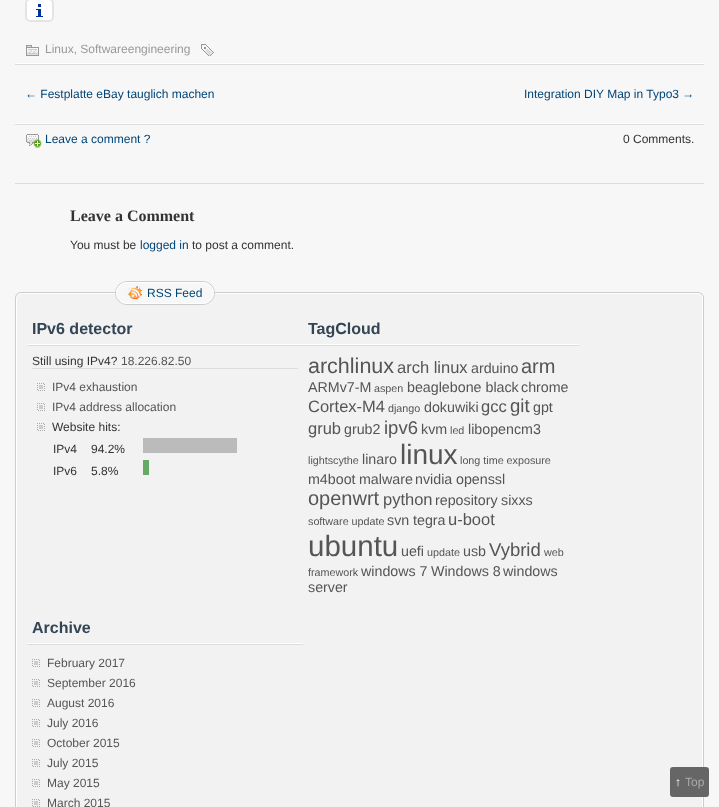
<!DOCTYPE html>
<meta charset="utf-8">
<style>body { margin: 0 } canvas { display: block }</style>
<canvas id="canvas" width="719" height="807"></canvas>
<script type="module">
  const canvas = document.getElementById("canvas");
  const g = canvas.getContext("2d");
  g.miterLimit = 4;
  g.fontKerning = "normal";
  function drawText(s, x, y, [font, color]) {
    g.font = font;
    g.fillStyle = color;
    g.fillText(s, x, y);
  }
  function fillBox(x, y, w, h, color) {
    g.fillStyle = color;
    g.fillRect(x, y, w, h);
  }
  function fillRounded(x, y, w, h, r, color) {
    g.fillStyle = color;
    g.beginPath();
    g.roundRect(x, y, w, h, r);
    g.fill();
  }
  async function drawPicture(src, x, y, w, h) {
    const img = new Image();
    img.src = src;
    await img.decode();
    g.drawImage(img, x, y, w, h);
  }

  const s1 = ["12px Liberation Sans", "#999999"];
  const s2 = ["12px Liberation Sans", "#004477"];
  const s3 = ["12px Liberation Sans", "#333333"];
  const s4 = ["bold 16px Liberation Serif", "#333333"];
  const s5 = ["bold 16px Liberation Sans", "#334455"];
  const s6 = ["12px Liberation Sans", "#555555"];
  const s7 = ["21.5px Liberation Sans", "#555555"];
  const s8 = ["16.5px Liberation Sans", "#555555"];
  const s9 = ["14.25px Liberation Sans", "#555555"];
  const s10 = ["20px Liberation Sans", "#555555"];
  const s11 = ["10.75px Liberation Sans", "#555555"];
  const s12 = ["18.5px Liberation Sans", "#555555"];
  const s13 = ["28px Liberation Sans", "#555555"];
  const s14 = ["29.5px Liberation Sans", "#555555"];
  const s15 = ["bold 12px Liberation Sans", "#FAFAFA"];
  const s16 = ["12px Liberation Sans", "#AAAAAA"];

  fillBox(0, 0, 719, 807, "#F7F7F7");
  fillRounded(25, -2, 29, 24, 5, "#FFFFFF");
  await drawPicture("pic1.png", 36, 4, 7, 13);
  g.beginPath();
  g.roundRect(26, -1, 27, 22, 4);
  g.strokeStyle = "#E7E3E3";
  g.lineWidth = 2;
  g.stroke();
  fillBox(15, 63, 689, 1, "#FFFFFF");
  await drawPicture("pic2.png", 26, 45, 13, 11);
  drawText("Linux, Softwareengineering", 45, 53, s1);
  await drawPicture("pic3.png", 201, 44, 13, 12);
  fillBox(15, 64, 689, 1, "#DDDDDD");
  fillBox(15, 123, 689, 1, "#FFFFFF");
  drawText("← Festplatte eBay tauglich machen", 25, 98, s2);
  drawText("Integration DIY Map in Typo3 →", 524, 98, s2);
  fillBox(15, 124, 689, 1, "#DDDDDD");
  await drawPicture("pic4.png", 26, 134, 16, 14);
  drawText("Leave a comment ?", 45, 143, s2);
  drawText("0 Comments.", 623, 143, s3);
  fillBox(15, 183, 689, 1, "#DDDDDD");
  drawText("Leave a Comment", 70, 221, s4);
  drawText("You must be", 70, 249, s3);
  drawText("logged in", 140, 249, s2);
  drawText("to post a comment.", 192, 249, s3);
  g.fillStyle = "#F2F2F2";
  g.beginPath();
  g.roundRect(15.5, 292.5, 688, 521, 5.5);
  g.fill();
  g.strokeStyle = "#CCCCCC";
  g.lineWidth = 1;
  g.stroke();
  g.beginPath();
  g.roundRect(16.5, 293.5, 686, 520, 5.5);
  g.strokeStyle = "#FFFFFF";
  g.stroke();
  g.beginPath();
  g.roundRect(115.5, 281.5, 99, 23, 11.5);
  g.strokeStyle = "#CCCCCC";
  g.stroke();
  g.fillStyle = "#F7F7F7";
  g.beginPath();
  g.roundRect(116.5, 282.5, 97, 21, 10.5);
  g.fill();
  g.strokeStyle = "#FFFFFF";
  g.stroke();
  await drawPicture("pic5.png", 127, 286, 16, 14);
  drawText("RSS Feed", 147, 297, s2);
  fillBox(27, 344, 552, 1, "#FFFFFF");
  drawText("IPv6 detector", 32, 334, s5);
  fillBox(27, 345, 552, 1, "#DDDDDD");
  drawText("Still using IPv4?", 32, 365, s3);
  drawText("18.226.82.50", 121, 365, s6);
  fillBox(32, 368, 266, 1, "#DDDDDD");
  await drawPicture("pic6.png", 37, 383, 8, 8);
  drawText("IPv4 exhaustion", 52, 391, s6);
  await drawPicture("pic6.png", 37, 403, 8, 8);
  drawText("IPv4 address allocation", 52, 411, s6);
  await drawPicture("pic6.png", 37, 423, 8, 8);
  drawText("Website hits:", 52, 431, s3);
  drawText("IPv4", 53, 453, s3);
  drawText("94.2%", 91, 453, s3);
  fillBox(143, 438, 94, 15, "#BBBBBB");
  drawText("IPv6", 53, 475, s3);
  drawText("5.8%", 91, 475, s3);
  fillBox(143, 460, 6, 15, "#66AA66");
  drawText("TagCloud", 308, 334, s5);
  drawText("archlinux", 308, 373, s7);
  drawText("arch linux", 397, 373, s8);
  drawText("arduino", 471, 373, s9);
  drawText("arm", 521, 373, s10);
  drawText("ARMv7-M", 308, 392, s9);
  drawText("aspen", 374, 392, s11);
  drawText("beaglebone black", 407, 392, s9);
  drawText("chrome", 521, 392, s9);
  drawText("Cortex-M4", 308, 412, s8);
  drawText("django", 388, 412, s11);
  drawText("dokuwiki", 424, 412, s9);
  drawText("gcc", 481, 412, s8);
  drawText("git", 510, 412, s12);
  drawText("gpt", 533, 412, s9);
  drawText("grub", 308, 434, s8);
  drawText("grub2", 344, 434, s9);
  drawText("ipv6", 384, 434, s12);
  drawText("kvm", 421, 434, s9);
  drawText("led", 450, 434, s11);
  drawText("libopencm3", 468, 434, s9);
  drawText("lightscythe", 308, 464, s11);
  drawText("linaro", 362, 464, s9);
  drawText("linux", 400, 464, s13);
  drawText("long time exposure", 460, 464, s11);
  drawText("m4boot", 308, 484, s9);
  drawText("malware", 359, 484, s9);
  drawText("nvidia", 415, 484, s9);
  drawText("openssl", 456, 484, s9);
  drawText("openwrt", 308, 505, s10);
  drawText("python", 383, 505, s8);
  drawText("repository", 435, 505, s9);
  drawText("sixxs", 501, 505, s9);
  drawText("software update", 308, 525, s11);
  drawText("svn", 387, 525, s9);
  drawText("tegra", 413, 525, s9);
  drawText("u-boot", 448, 525, s8);
  drawText("ubuntu", 308, 556, s14);
  drawText("uefi", 401, 556, s9);
  drawText("update", 427, 556, s11);
  drawText("usb", 463, 556, s9);
  drawText("Vybrid", 489, 556, s12);
  drawText("web", 544, 556, s11);
  drawText("framework", 308, 576, s11);
  drawText("windows 7", 361, 576, s9);
  drawText("Windows 8", 431, 576, s9);
  drawText("windows", 503, 576, s9);
  drawText("server", 308, 592, s9);
  fillBox(27, 643, 276, 1, "#FFFFFF");
  drawText("Archive", 32, 633, s5);
  fillBox(27, 644, 276, 1, "#DDDDDD");
  await drawPicture("pic6.png", 32, 659, 8, 8);
  drawText("February 2017", 47, 667, s6);
  await drawPicture("pic6.png", 32, 679, 8, 8);
  drawText("September 2016", 47, 687, s6);
  await drawPicture("pic6.png", 32, 699, 8, 8);
  drawText("August 2016", 47, 707, s6);
  await drawPicture("pic6.png", 32, 719, 8, 8);
  drawText("July 2016", 47, 727, s6);
  await drawPicture("pic6.png", 32, 739, 8, 8);
  drawText("October 2015", 47, 747, s6);
  await drawPicture("pic6.png", 32, 759, 8, 8);
  drawText("July 2015", 47, 767, s6);
  await drawPicture("pic6.png", 32, 779, 8, 8);
  drawText("May 2015", 47, 787, s6);
  await drawPicture("pic6.png", 32, 799, 8, 8);
  drawText("March 2015", 47, 807, s6);
  fillRounded(670, 767, 39, 30, 3, "#666666");
  drawText("↑", 675, 786, s15);
  drawText("Top", 685, 786, s16);
</script>
